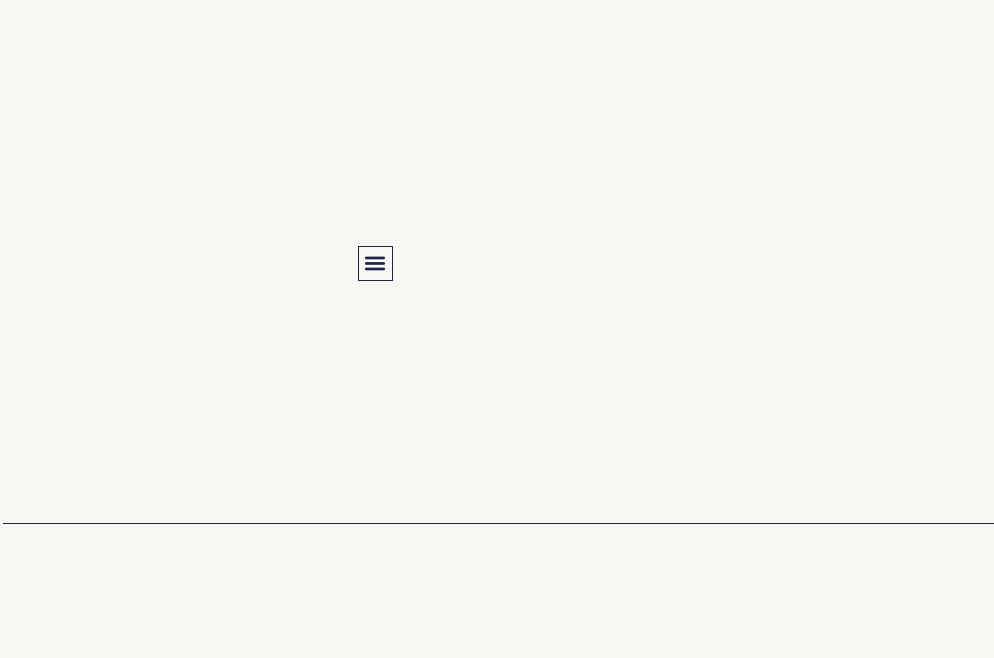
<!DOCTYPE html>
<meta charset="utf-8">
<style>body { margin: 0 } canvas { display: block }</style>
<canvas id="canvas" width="994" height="658"></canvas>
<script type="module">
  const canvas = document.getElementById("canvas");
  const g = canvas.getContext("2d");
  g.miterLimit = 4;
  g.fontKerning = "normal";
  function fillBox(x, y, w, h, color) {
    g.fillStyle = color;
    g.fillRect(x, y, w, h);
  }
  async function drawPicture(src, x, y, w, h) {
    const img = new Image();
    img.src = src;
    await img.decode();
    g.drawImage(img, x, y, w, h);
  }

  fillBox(0, 0, 994, 658, "#F9F7F3");
  fillBox(3, 523, 991, 1, "#1C244B");
  g.strokeStyle = "#1C244B";
  g.strokeRect(358.5, 246.5, 34, 34);
  await drawPicture("pic1.png", 364, 256, 22, 15);
</script>
